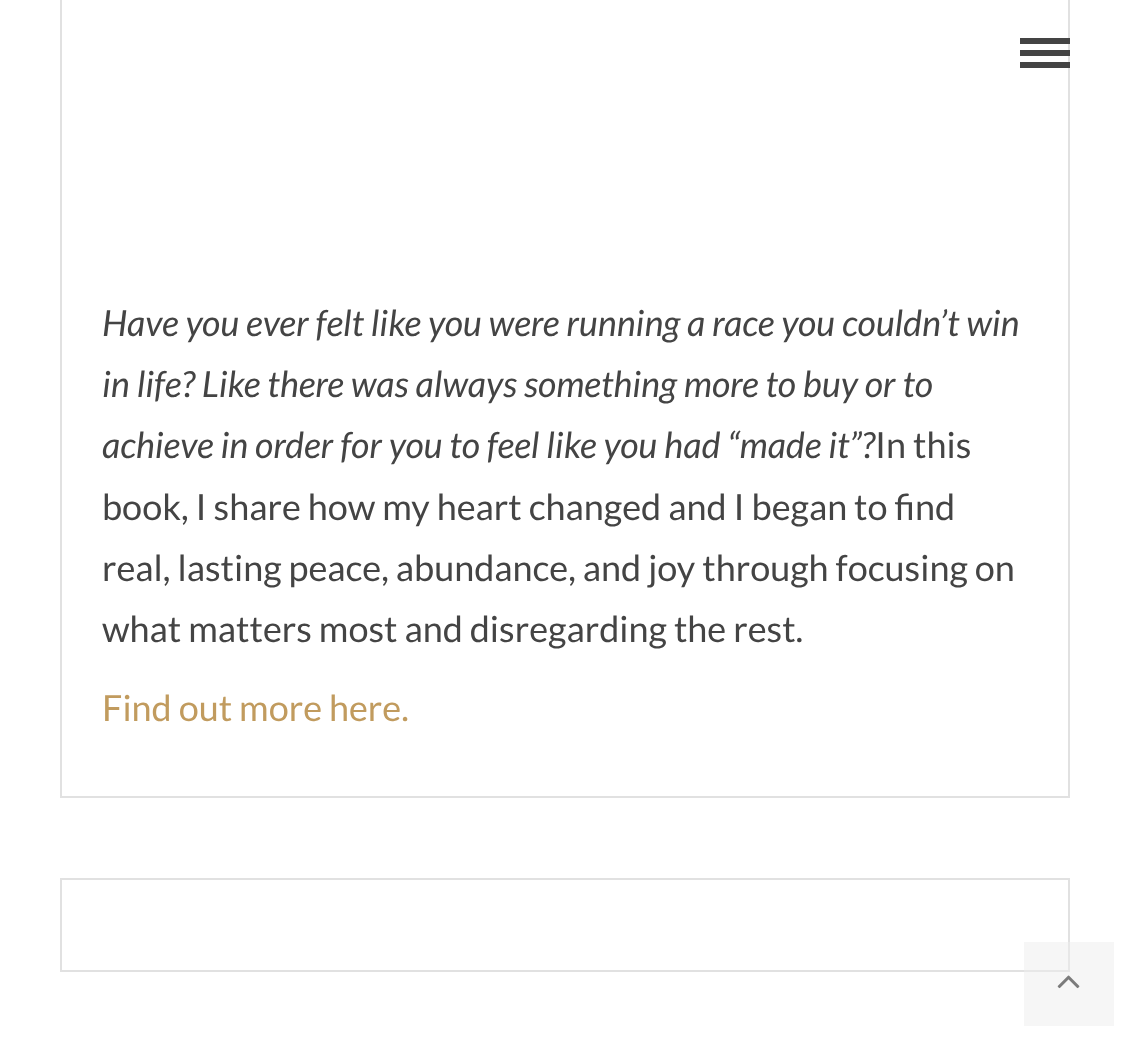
<!DOCTYPE html>
<meta charset="utf-8">
<style>body { margin: 0 } canvas { display: block }</style>
<canvas id="canvas" width="1130" height="1041"></canvas>
<script type="module">
  const canvas = document.getElementById("canvas");
  const g = canvas.getContext("2d");
  g.miterLimit = 4;
  g.fontKerning = "normal";
  function drawText(s, x, y, [font, color]) {
    g.font = font;
    g.fillStyle = color;
    g.fillText(s, x, y);
  }
  function fillBox(x, y, w, h, color) {
    g.fillStyle = color;
    g.fillRect(x, y, w, h);
  }
  async function drawPicture(src, x, y, w, h) {
    const img = new Image();
    img.src = src;
    await img.decode();
    g.drawImage(img, x, y, w, h);
  }

  const s1 = ["italic 36px Lato", "#444444"];
  const s2 = ["36px Lato", "#444444"];
  const s3 = ["36px Lato", "#C19B5E"];

  fillBox(0, 0, 1130, 1041, "#FFFFFF");
  g.strokeStyle = "#E1E1E1";
  g.lineWidth = 2;
  g.strokeRect(61, -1, 1008, 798);
  fillBox(1020, 38, 50, 6, "#444444");
  fillBox(1020, 50, 50, 6, "#444444");
  fillBox(1020, 62, 50, 6, "#444444");
  drawText("Have you ever felt like you were running a race you couldn’t win", 102, 336, s1);
  drawText("in life? Like there was always something more to buy or to", 102, 397, s1);
  drawText("achieve in order for you to feel like you had “made it”?", 102, 458, s1);
  drawText("In this", 875, 458, s2);
  drawText("book, I share how my heart changed and I began to find", 102, 520, s2);
  drawText("real, lasting peace, abundance, and joy through focusing on", 102, 581, s2);
  drawText("what matters most and disregarding the rest.", 102, 642, s2);
  drawText("Find out more here.", 102, 721, s3);
  g.strokeRect(61, 879, 1008, 92);
  fillBox(1024, 942, 90, 84, "rgba(238, 238, 238, 0.5)");
  await drawPicture("pic1.png", 1057, 975, 23, 14);
</script>
